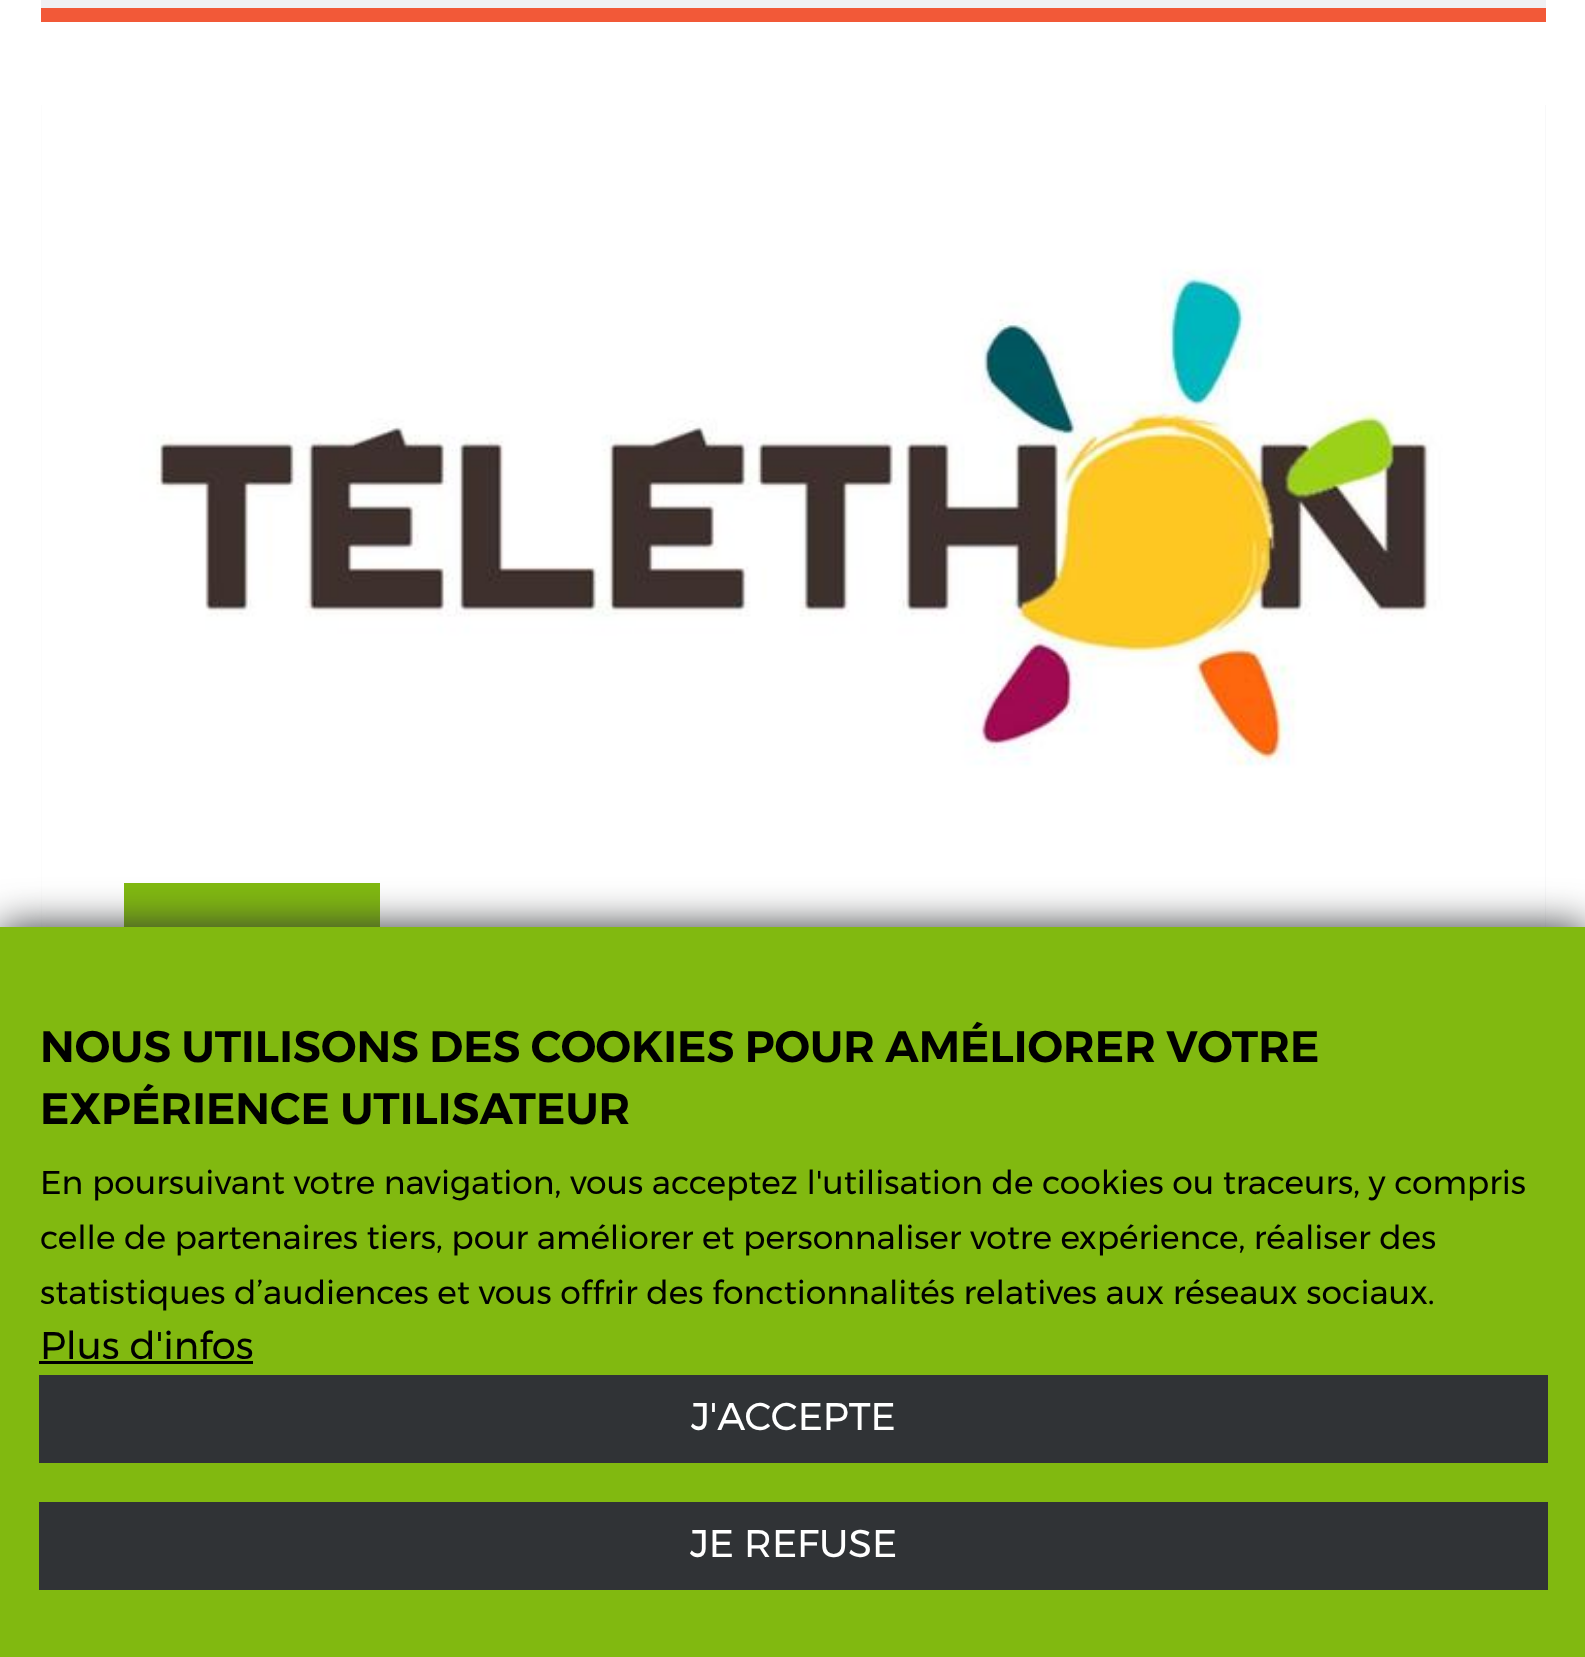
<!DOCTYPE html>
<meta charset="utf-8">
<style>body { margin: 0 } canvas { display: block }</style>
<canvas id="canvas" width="1585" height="1657"></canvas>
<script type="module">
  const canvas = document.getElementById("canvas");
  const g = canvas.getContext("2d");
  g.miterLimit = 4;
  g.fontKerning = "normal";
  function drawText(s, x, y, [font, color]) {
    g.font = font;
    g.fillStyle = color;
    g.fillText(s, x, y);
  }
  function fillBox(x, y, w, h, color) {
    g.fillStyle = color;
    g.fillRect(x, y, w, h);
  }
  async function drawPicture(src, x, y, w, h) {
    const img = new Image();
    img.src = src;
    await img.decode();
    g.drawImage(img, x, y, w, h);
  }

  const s1 = ["600 44px Montserrat", "#000000"];
  const s2 = ["33px Montserrat", "#000000"];
  const s3 = ["38.5px Montserrat", "#000000"];
  const s4 = ["38.5px Montserrat", "#FFFFFF"];

  fillBox(0, 0, 1585, 1657, "#FFFFFF");
  fillBox(41, 0, 1505, 8, "#F0F1F3");
  fillBox(41, 8, 1505, 14, "#F25938");
  fillBox(41, 105, 1505, 822, "#F0F1F3");
  await drawPicture("pic1.png", 41, 105, 1505, 822);
  fillBox(124, 883, 256, 44, "#81B910");
  g.fillStyle = "#303336";
  g.filter = "blur(20.5px)";
  g.beginPath();
  g.rect(0, 927, 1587, 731);
  g.fill();
  g.filter = "none";
  fillBox(0, 927, 1585, 730, "#81B910");
  drawText("NOUS UTILISONS DES COOKIES POUR AMÉLIORER VOTRE", 40, 1062, s1);
  drawText("EXPÉRIENCE UTILISATEUR", 40, 1124, s1);
  drawText("En poursuivant votre navigation, vous acceptez l'utilisation de cookies ou traceurs, y compris", 40, 1194, s2);
  drawText("celle de partenaires tiers, pour améliorer et personnaliser votre expérience, réaliser des", 40, 1249, s2);
  drawText("statistiques d’audiences et vous offrir des fonctionnalités relatives aux réseaux sociaux.", 40, 1304, s2);
  drawText("Plus d'infos", 40, 1359, s3);
  fillBox(39, 1361, 214, 3, "#000000");
  fillBox(39, 1375, 1509, 88, "#303336");
  drawText("J'ACCEPTE", 691, 1430, s4);
  fillBox(39, 1502, 1509, 88, "#303336");
  drawText("JE REFUSE", 690, 1557, s4);
</script>
